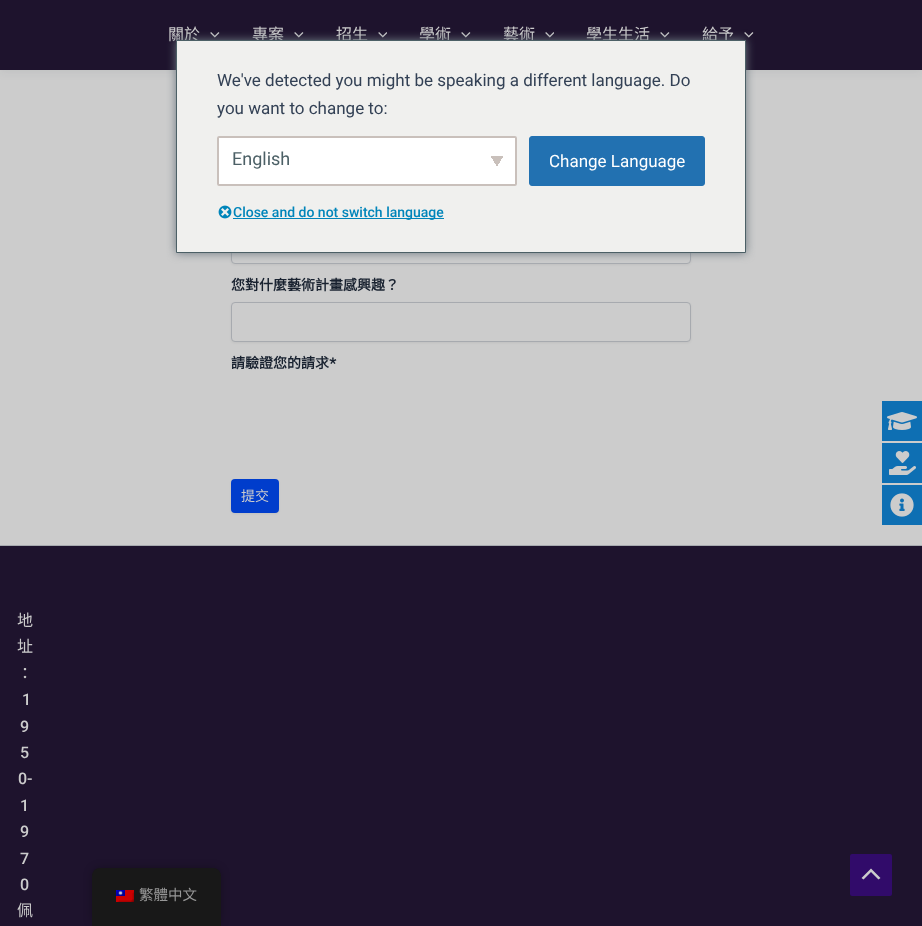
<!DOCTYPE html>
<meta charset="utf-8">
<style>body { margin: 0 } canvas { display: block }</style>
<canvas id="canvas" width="922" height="926"></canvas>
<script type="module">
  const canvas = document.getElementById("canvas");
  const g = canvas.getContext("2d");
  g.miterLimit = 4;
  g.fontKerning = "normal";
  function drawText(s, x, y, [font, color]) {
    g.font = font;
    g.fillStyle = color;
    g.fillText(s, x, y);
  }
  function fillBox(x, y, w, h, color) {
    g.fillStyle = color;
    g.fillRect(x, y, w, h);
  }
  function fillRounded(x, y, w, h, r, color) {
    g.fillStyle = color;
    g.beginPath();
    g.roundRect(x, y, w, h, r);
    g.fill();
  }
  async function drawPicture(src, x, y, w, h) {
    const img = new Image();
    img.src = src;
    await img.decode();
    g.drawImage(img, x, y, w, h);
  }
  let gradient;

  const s1 = ["16px Noto Sans CJK TC", "#CCCCCC"];
  const s2 = ["bold 14px Noto Sans CJK TC", "#18212F"];
  const s3 = ["600 14px IBM Plex Sans", "#18212F"];
  const s4 = ["14px Noto Sans CJK TC", "#CCCCCC"];
  const s5 = ["500 16px Roboto", "#CCCCCC"];
  const s6 = ["17px Roboto", "#334155"];
  const s7 = ["18px Roboto", "#4C6066"];
  const s8 = ["17px Roboto", "#FFFFFF"];
  const s9 = ["500 14px Roboto", "#0085BA"];
  const s10 = ["14.5px Noto Sans CJK TC", "#979797"];

  fillBox(0, 0, 922, 926, "#CCCCCC");
  g.fillStyle = "rgba(29, 40, 53, 0.07)";
  g.filter = "blur(5px)";
  g.beginPath();
  g.rect(0, 2, 922, 70);
  g.fill();
  g.filter = "none";
  fillBox(0, 0, 922, 70, "#1E132D");
  drawText("關於", 168, 40, s1);
  await drawPicture("pic1.png", 210, 32, 10, 6);
  drawText("專案", 252, 40, s1);
  await drawPicture("pic1.png", 294, 32, 10, 6);
  drawText("招生", 336, 40, s1);
  await drawPicture("pic2.png", 378, 32, 9, 6);
  drawText("學術", 419, 40, s1);
  await drawPicture("pic1.png", 461, 32, 10, 6);
  drawText("藝術", 503, 40, s1);
  await drawPicture("pic2.png", 545, 32, 9, 6);
  drawText("學生生活", 586, 40, s1);
  await drawPicture("pic1.png", 660, 32, 10, 6);
  drawText("給予", 702, 40, s1);
  await drawPicture("pic1.png", 744, 32, 10, 6);
  g.fillStyle = "rgba(0, 0, 0, 0.05)";
  g.filter = "blur(1px)";
  g.beginPath();
  g.roundRect(231, 225, 460, 40, 4);
  g.fill();
  g.filter = "none";
  g.fillStyle = "#CCCCCC";
  g.beginPath();
  g.roundRect(231.5, 224.5, 459, 39, 3.5);
  g.fill();
  g.strokeStyle = "#A7AAAF";
  g.stroke();
  drawText("您對什麼藝術計畫感興趣？", 231, 290, s2);
  g.fillStyle = "rgba(0, 0, 0, 0.05)";
  g.filter = "blur(1px)";
  g.beginPath();
  g.roundRect(231, 303, 460, 40, 4);
  g.fill();
  g.filter = "none";
  g.fillStyle = "#CCCCCC";
  g.beginPath();
  g.roundRect(231.5, 302.5, 459, 39, 3.5);
  g.fill();
  g.stroke();
  drawText("請驗證您的請求", 231, 368, s2);
  drawText("*", 329, 368, s3);
  g.fillStyle = "rgba(0, 0, 0, 0.05)";
  g.filter = "blur(1px)";
  g.beginPath();
  g.roundRect(231, 480, 48, 34, 4);
  g.fill();
  g.filter = "none";
  fillRounded(231, 479, 48, 34, 4, "#003DCC");
  drawText("提交", 241, 501, s4);
  fillBox(0, 546, 922, 380, "#1E132D");
  fillBox(0, 545, 922, 1, "#A7AAAF");
  drawText("地", 17, 626, s1);
  drawText("址", 17, 652, s1);
  drawText("：", 17, 679, s1);
  drawText("1", 22, 705, s5);
  drawText("9", 20, 732, s5);
  drawText("5", 20, 758, s5);
  drawText("0-", 18, 784, s5);
  drawText("1", 20, 811, s5);
  drawText("9", 20, 837, s5);
  drawText("7", 20, 864, s5);
  drawText("0", 20, 890, s5);
  drawText("佩", 17, 916, s1);
  g.fillStyle = "#6C7781";
  g.filter = "blur(5px)";
  g.beginPath();
  g.rect(176, 40, 570, 213);
  g.fill();
  g.filter = "none";
  g.fillStyle = "#F0F0EE";
  g.beginPath();
  g.rect(176.5, 40.5, 569, 212);
  g.fill();
  g.strokeStyle = "#4C6066";
  g.stroke();
  drawText("We've detected you might be speaking a different language. Do", 217, 86, s6);
  drawText("you want to change to:", 217, 114, s6);
  fillRounded(217, 136, 300, 50, 2, "#FFFFFF");
  gradient = g.createLinearGradient(495, 159, 505, 165);
  gradient.addColorStop(0.5, "#C9C0BB");
  gradient.addColorStop(0.5, "#FFFFFF");
  g.fillStyle = gradient;
  g.fillRect(497, 156, 6, 12);
  gradient = g.createLinearGradient(489, 165, 499, 159);
  gradient.addColorStop(0.5, "#FFFFFF");
  gradient.addColorStop(0.5, "#C9C0BB");
  g.fillStyle = gradient;
  g.fillRect(491, 156, 6, 12);
  g.beginPath();
  g.roundRect(218, 137, 298, 48, 1);
  g.strokeStyle = "#C9C0BB";
  g.lineWidth = 2;
  g.stroke();
  drawText("English", 232, 165, s7);
  g.fillStyle = "#2271B1";
  g.beginPath();
  g.roundRect(529.5, 136.5, 175, 49, 2.5);
  g.fill();
  g.strokeStyle = "#2271B1";
  g.lineWidth = 1;
  g.stroke();
  drawText("Change Language", 549, 167, s8);
  await drawPicture("pic3.png", 218, 205, 14, 14);
  fillBox(233, 218, 211, 1, "#0085BA");
  drawText("Close and do not switch language", 233, 217, s9);
  fillBox(882, 401, 40, 40, "#0E6FB3");
  await drawPicture("pic4.png", 887, 412, 30, 18);
  fillBox(882, 443, 40, 40, "#0E6FB3");
  await drawPicture("pic5.png", 889, 451, 27, 24);
  fillBox(882, 485, 40, 40, "#0E6FB3");
  await drawPicture("pic6.png", 890, 493, 24, 24);
  g.fillStyle = "rgba(0, 0, 0, 0.25)";
  g.filter = "blur(4px)";
  g.beginPath();
  g.roundRect(92, 868, 129, 58, 8);
  g.fill();
  g.filter = "none";
  g.fillStyle = "#181818";
  g.beginPath();
  g.roundRect(92, 868, 129, 58, [8, 8, 0, 0]);
  g.fill();
  await drawPicture("pic7.png", 116, 890, 18, 12);
  drawText("繁體中文", 139, 900, s10);
  fillRounded(850, 854, 42, 42, 2, "#310B6A");
  g.fillStyle = "#CCCCCC";
  g.beginPath();
  g.moveTo(880.5, 878);
  g.lineTo(871, 868.5);
  g.lineTo(861.5, 878);
  g.lineTo(863.5, 879.5);
  g.lineTo(871, 872);
  g.lineTo(878.5, 879.5);
  g.closePath();
  g.fill();
</script>
